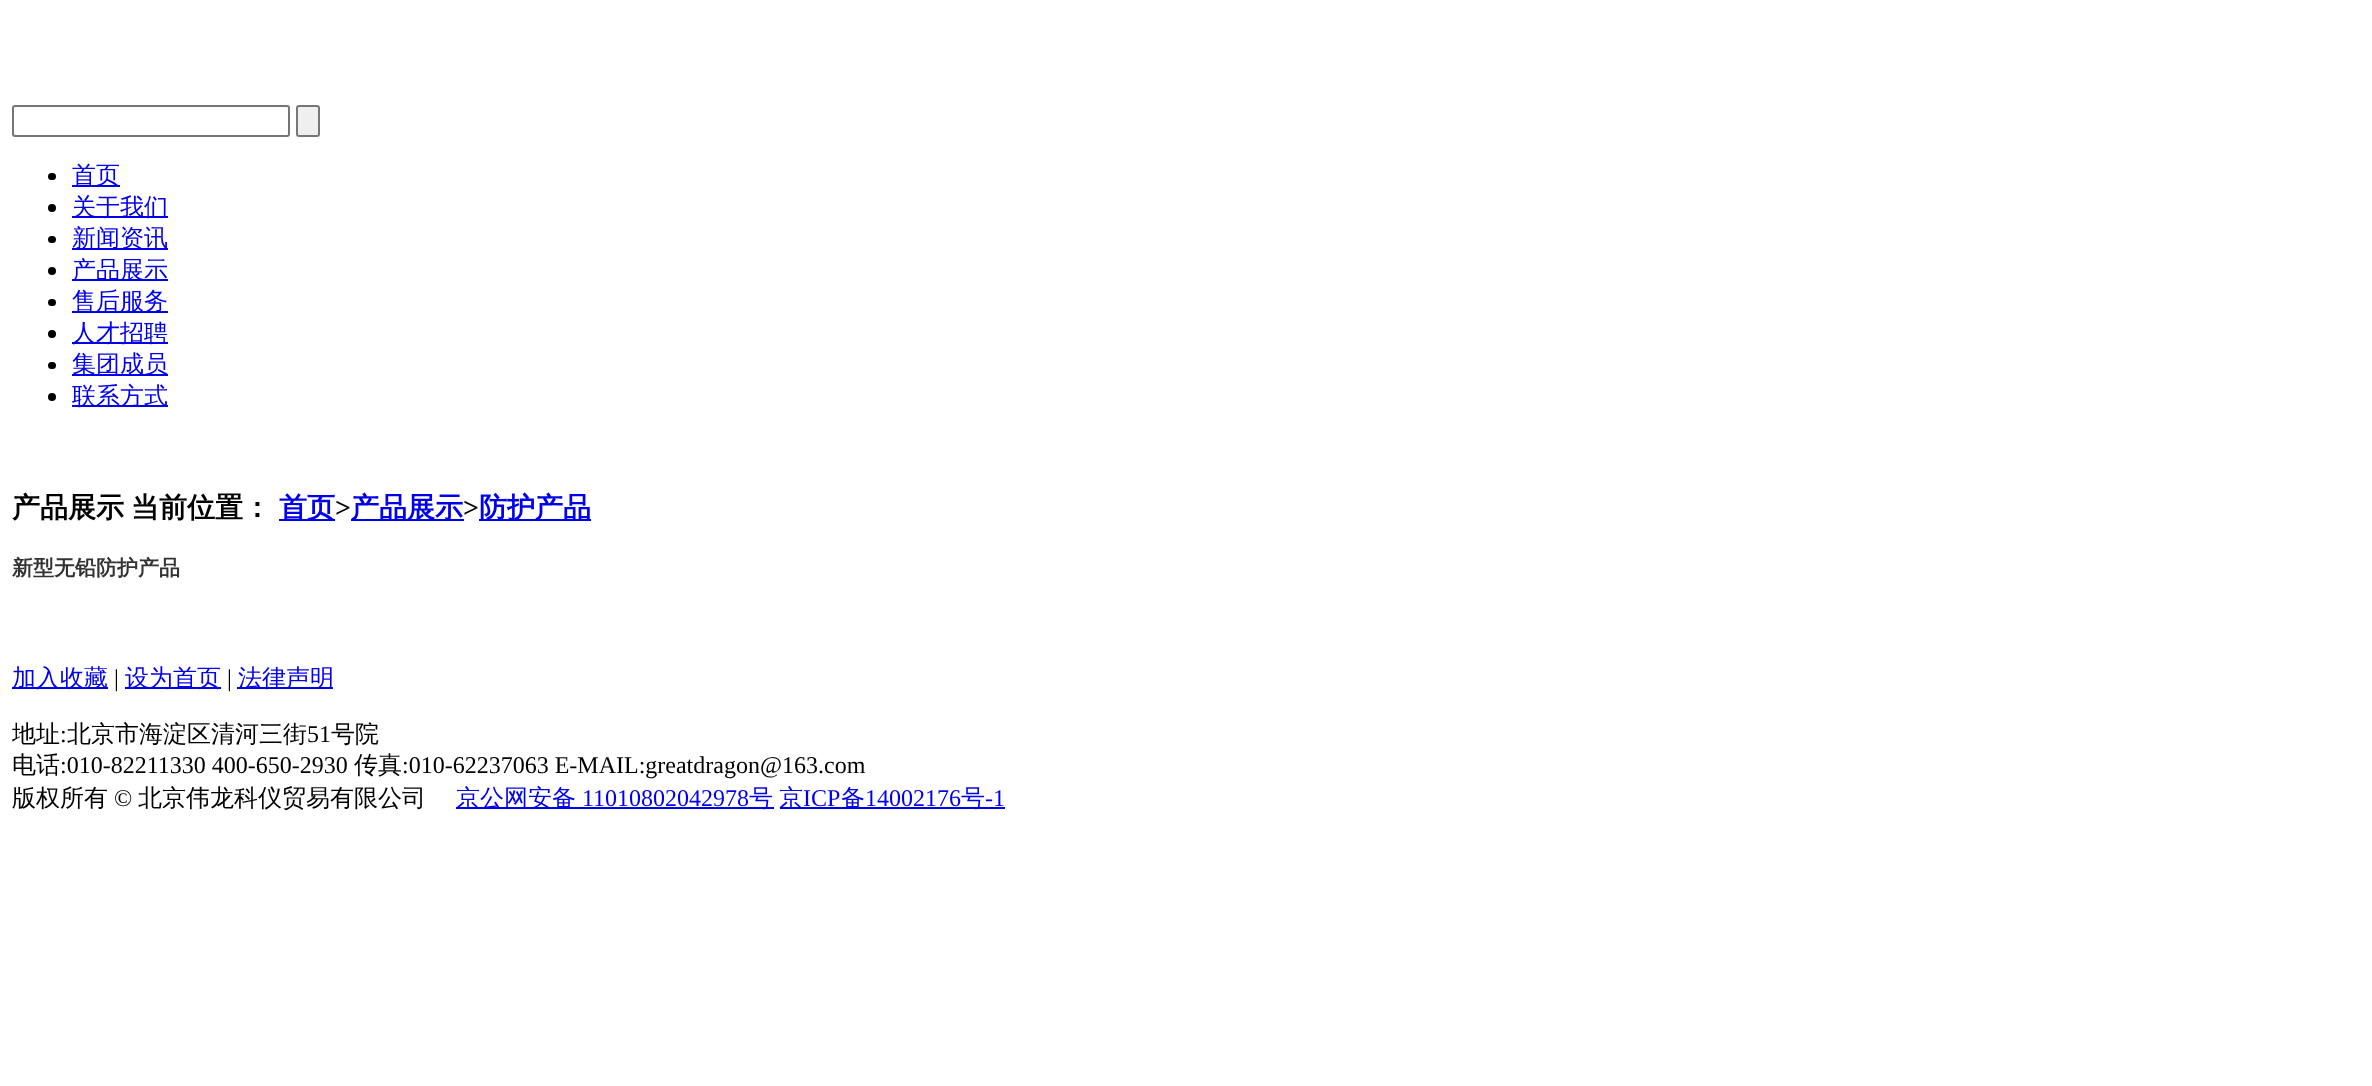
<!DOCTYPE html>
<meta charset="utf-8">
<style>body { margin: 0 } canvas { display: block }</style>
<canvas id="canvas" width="2372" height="1086"></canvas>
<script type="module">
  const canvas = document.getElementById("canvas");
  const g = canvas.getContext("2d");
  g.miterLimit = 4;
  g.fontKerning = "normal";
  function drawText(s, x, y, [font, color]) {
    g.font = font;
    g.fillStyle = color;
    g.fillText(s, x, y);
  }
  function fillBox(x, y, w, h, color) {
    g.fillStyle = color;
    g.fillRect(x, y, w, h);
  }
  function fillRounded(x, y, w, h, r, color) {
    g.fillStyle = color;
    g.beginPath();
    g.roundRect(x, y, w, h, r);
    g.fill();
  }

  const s1 = ["500 24px WenQuanYi Zen Hei", "#0000EE"];
  const s2 = ["bold 28px WenQuanYi Zen Hei", "#000000"];
  const s3 = ["bold 28px WenQuanYi Zen Hei", "#0000EE"];
  const s4 = ["bold 28px Liberation Serif", "#000000"];
  const s5 = ["bold 21px WenQuanYi Zen Hei", "#333333"];
  const s6 = ["24px Liberation Serif", "#000000"];
  const s7 = ["500 24px WenQuanYi Zen Hei", "#000000"];
  const s8 = ["24px Liberation Serif", "#0000EE"];

  fillBox(0, 0, 2372, 1086, "#FFFFFF");
  g.beginPath();
  g.roundRect(13, 106, 276, 30, 2);
  g.strokeStyle = "#767676";
  g.lineWidth = 2;
  g.stroke();
  g.fillStyle = "#EFEFEF";
  g.beginPath();
  g.roundRect(297, 106, 22, 30, 2);
  g.fill();
  g.stroke();
  fillRounded(48, 173, 8, 7, 3.5, "#000000");
  fillBox(72, 185, 48, 2, "#0000EE");
  drawText("首页", 72, 183, s1);
  g.fillStyle = "#000000";
  g.beginPath();
  g.arc(52, 208, 4, 0, Math.PI * 2);
  g.fill();
  fillBox(72, 216, 96, 2, "#0000EE");
  drawText("关于我们", 72, 215, s1);
  fillRounded(48, 236, 8, 7, 3.5, "#000000");
  fillBox(72, 248, 96, 2, "#0000EE");
  drawText("新闻资讯", 72, 246, s1);
  g.fillStyle = "#000000";
  g.beginPath();
  g.arc(52, 271, 4, 0, Math.PI * 2);
  g.fill();
  fillBox(72, 279, 96, 2, "#0000EE");
  drawText("产品展示", 72, 278, s1);
  fillRounded(48, 299, 8, 7, 3.5, "#000000");
  fillBox(72, 311, 96, 2, "#0000EE");
  drawText("售后服务", 72, 309, s1);
  g.fillStyle = "#000000";
  g.beginPath();
  g.arc(52, 334, 4, 0, Math.PI * 2);
  g.fill();
  fillBox(72, 342, 96, 2, "#0000EE");
  drawText("人才招聘", 72, 341, s1);
  fillRounded(48, 362, 8, 7, 3.5, "#000000");
  fillBox(72, 374, 96, 2, "#0000EE");
  drawText("集团成员", 72, 372, s1);
  g.fillStyle = "#000000";
  g.beginPath();
  g.arc(52, 397, 4, 0, Math.PI * 2);
  g.fill();
  fillBox(72, 405, 96, 2, "#0000EE");
  drawText("联系方式", 72, 404, s1);
  drawText("产品展示", 12, 517, s2);
  drawText("当前位置：", 131, 517, s2);
  fillBox(279, 519, 56, 2, "#0000EE");
  drawText("首页", 279, 517, s3);
  drawText(">", 335, 517, s4);
  fillBox(351, 519, 113, 2, "#0000EE");
  drawText("产品展示", 351, 517, s3);
  drawText(">", 463, 517, s4);
  fillBox(479, 519, 112, 2, "#0000EE");
  drawText("防护产品", 479, 517, s3);
  drawText("新型无铅防护产品", 12, 575, s5);
  fillBox(12, 687, 96, 2, "#0000EE");
  drawText("加入收藏", 12, 686, s1);
  drawText("|", 114, 686, s6);
  fillBox(125, 687, 96, 2, "#0000EE");
  drawText("设为首页", 125, 686, s1);
  drawText("|", 227, 686, s6);
  fillBox(237, 687, 96, 2, "#0000EE");
  drawText("法律声明", 238, 686, s1);
  drawText("地址", 12, 742, s7);
  drawText(":", 60, 742, s6);
  drawText("北京市海淀区清河三街", 67, 742, s7);
  drawText("51", 307, 742, s6);
  drawText("号院", 331, 742, s7);
  drawText("电话", 12, 773, s7);
  drawText(":010-82211330 400-650-2930", 60, 773, s6);
  drawText("传真", 354, 773, s7);
  drawText(":010-62237063 E-MAIL:greatdragon@163.com", 402, 773, s6);
  drawText("版权所有", 12, 806, s7);
  drawText("©", 114, 806, s6);
  drawText("北京伟龙科仪贸易有限公司", 138, 806, s7);
  fillBox(456, 807, 318, 2, "#0000EE");
  drawText("京公网安备", 456, 806, s1);
  drawText("11010802042978", 582, 806, s8);
  drawText("号", 749, 806, s1);
  fillBox(780, 807, 225, 2, "#0000EE");
  drawText("京", 779, 806, s1);
  drawText("ICP", 803, 806, s8);
  drawText("备", 841, 806, s1);
  drawText("14002176", 865, 806, s8);
  drawText("号", 961, 806, s1);
  drawText("-1", 985, 806, s8);
</script>
